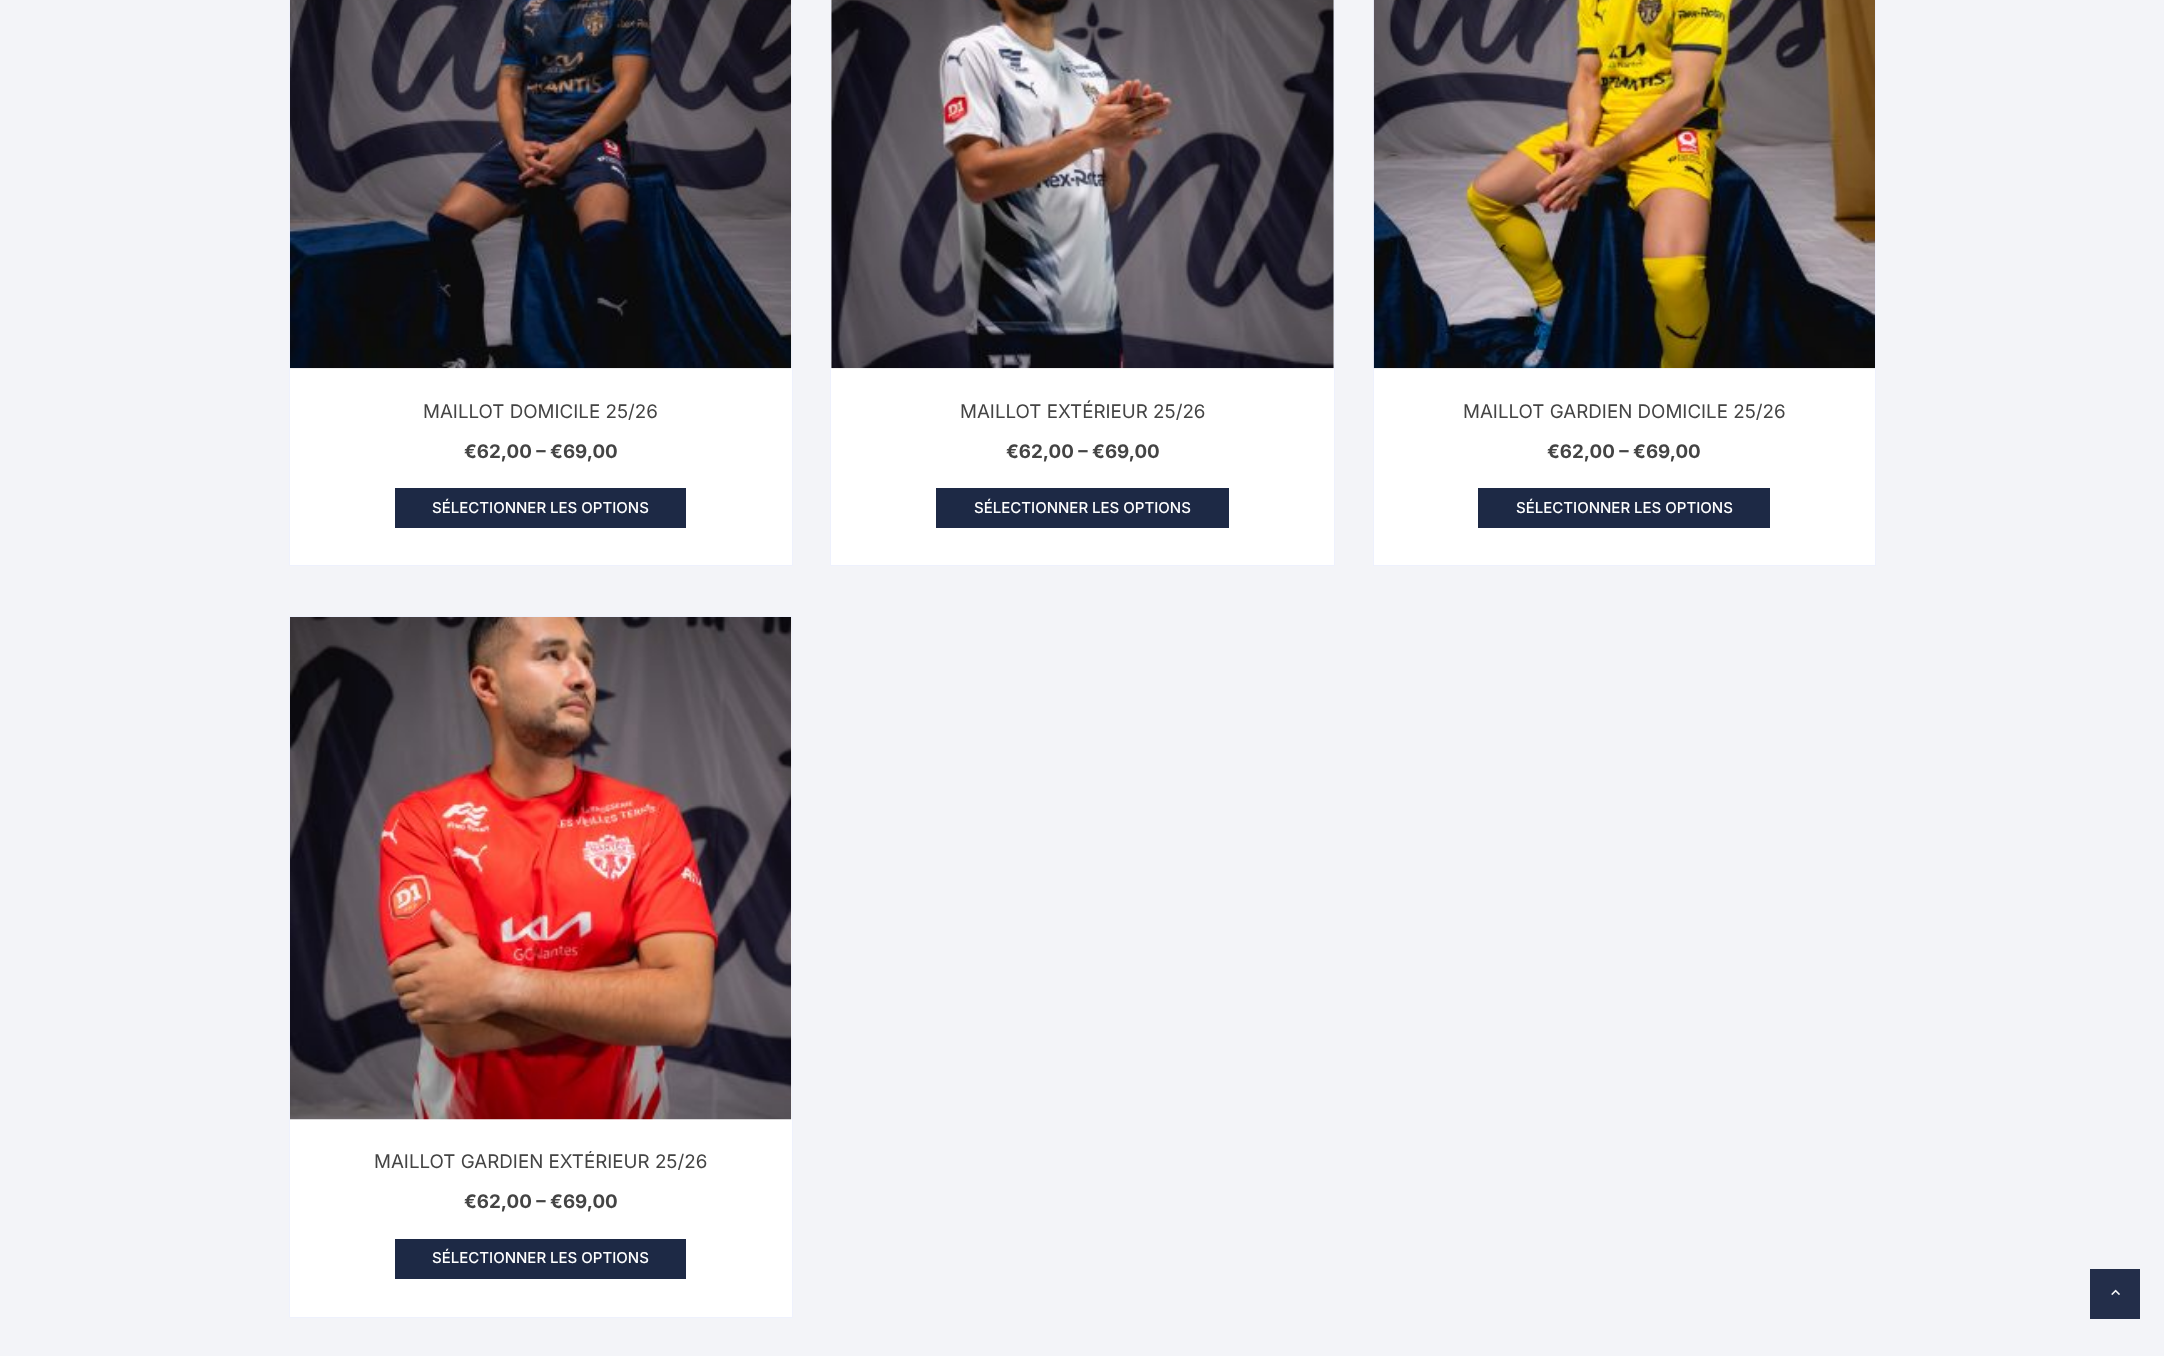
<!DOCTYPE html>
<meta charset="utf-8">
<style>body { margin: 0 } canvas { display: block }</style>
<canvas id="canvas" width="2164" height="1356"></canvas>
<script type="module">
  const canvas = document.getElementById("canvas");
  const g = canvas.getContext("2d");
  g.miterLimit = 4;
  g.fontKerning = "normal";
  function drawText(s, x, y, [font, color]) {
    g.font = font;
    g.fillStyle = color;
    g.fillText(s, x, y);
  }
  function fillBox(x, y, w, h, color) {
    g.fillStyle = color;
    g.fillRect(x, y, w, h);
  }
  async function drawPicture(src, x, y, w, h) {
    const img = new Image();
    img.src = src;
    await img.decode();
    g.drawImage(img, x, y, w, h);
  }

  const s1 = ["18.75px Inter", "#444444"];
  const s2 = ["bold 18.75px Inter", "#444444"];
  const s3 = ["500 15px Inter", "#FFFFFF"];

  fillBox(0, 0, 2164, 1356, "#F3F4F8");
  g.fillStyle = "#FFFFFF";
  g.beginPath();
  g.rect(289.5, -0.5, 503, 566);
  g.fill();
  g.strokeStyle = "#EEF1FD";
  g.stroke();
  await drawPicture("pic1.png", 290, 0, 502, 369);
  drawText("MAILLOT DOMICILE 25/26", 423, 418, s1);
  drawText("€62,00 – €69,00", 464, 458, s2);
  fillBox(395, 488, 291, 40, "#1D2945");
  drawText("SÉLECTIONNER LES OPTIONS", 432, 513, s3);
  g.beginPath();
  g.rect(830.5, -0.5, 504, 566);
  g.fill();
  g.stroke();
  await drawPicture("pic2.png", 831, 0, 503, 369);
  drawText("MAILLOT EXTÉRIEUR 25/26", 960, 418, s1);
  drawText("€62,00 – €69,00", 1006, 458, s2);
  fillBox(936, 488, 293, 40, "#1D2945");
  drawText("SÉLECTIONNER LES OPTIONS", 974, 513, s3);
  fillBox(1374, 368, 501, 197, "#FFFFFF");
  g.strokeRect(1373.5, -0.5, 502, 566);
  await drawPicture("pic3.png", 1373, 0, 502, 369);
  drawText("MAILLOT GARDIEN DOMICILE 25/26", 1463, 418, s1);
  drawText("€62,00 – €69,00", 1547, 458, s2);
  fillBox(1478, 488, 292, 40, "#1D2945");
  drawText("SÉLECTIONNER LES OPTIONS", 1516, 513, s3);
  g.beginPath();
  g.rect(289.5, 616.5, 503, 701);
  g.fill();
  g.stroke();
  await drawPicture("pic4.png", 290, 617, 502, 503);
  g.save();
  g.beginPath();
  g.rect(315, 1151, 451, 23);
  g.clip();
  drawText("MAILLOT GARDIEN EXTÉRIEUR 25/26", 374, 1168, s1);
  g.restore();
  drawText("€62,00 – €69,00", 464, 1208, s2);
  fillBox(395, 1239, 291, 40, "#1D2945");
  drawText("SÉLECTIONNER LES OPTIONS", 432, 1263, s3);
  fillBox(2090, 1269, 50, 50, "#232E4A");
  await drawPicture("pic5.png", 2111, 1289, 9, 7);
</script>
